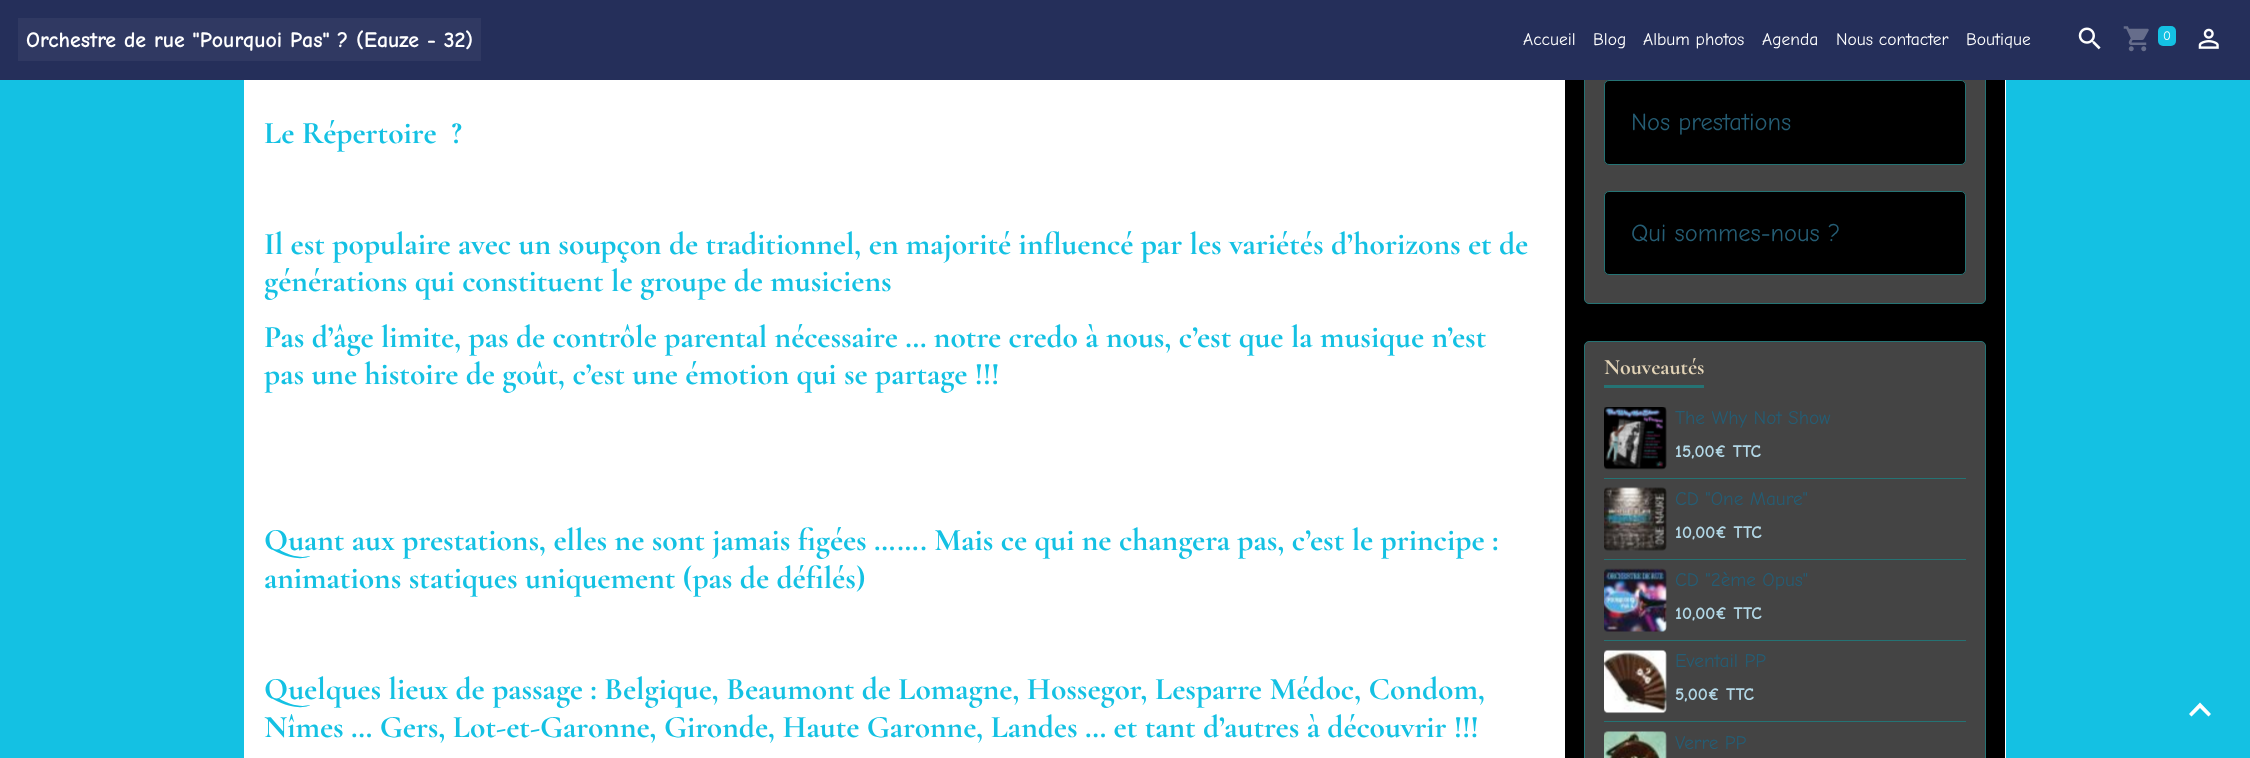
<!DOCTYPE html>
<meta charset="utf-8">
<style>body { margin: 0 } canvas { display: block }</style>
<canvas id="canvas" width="2250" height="758"></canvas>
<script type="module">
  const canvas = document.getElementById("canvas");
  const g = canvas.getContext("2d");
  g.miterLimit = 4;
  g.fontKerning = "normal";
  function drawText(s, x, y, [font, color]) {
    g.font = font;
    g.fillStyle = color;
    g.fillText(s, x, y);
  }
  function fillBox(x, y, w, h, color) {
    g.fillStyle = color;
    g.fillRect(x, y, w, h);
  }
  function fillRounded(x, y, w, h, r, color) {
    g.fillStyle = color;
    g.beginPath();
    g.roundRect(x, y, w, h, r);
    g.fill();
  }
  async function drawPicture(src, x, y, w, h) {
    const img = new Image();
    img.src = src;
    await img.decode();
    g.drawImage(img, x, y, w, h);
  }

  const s1 = ["bold 21.9px Comic Neue", "#FFFFFF"];
  const s2 = ["17.5px Comic Neue", "#FFFFFF"];
  const s3 = ["13px Comic Neue", "#FFFFFF"];
  const s4 = ["bold 31.5px Cormorant Garamond", "#14C1E3"];
  const s5 = ["24.5px Comic Neue", "#255D74"];
  const s6 = ["bold 21.9px Cormorant Garamond", "#E2D3B6"];
  const s7 = ["19.25px Comic Neue", "#255D74"];
  const s8 = ["bold 17.5px Comic Neue", "#B2D7E6"];

  fillBox(0, 0, 2250, 758, "#14C1E3");
  fillBox(244, 80, 1762, 678, "#FFFFFF");
  fillBox(1565, 80, 440, 678, "#000000");
  g.fillStyle = "#444444";
  g.beginPath();
  g.roundRect(1584.5, 25.5, 401, 278, 4.5);
  g.fill();
  g.strokeStyle = "#257374";
  g.stroke();
  fillBox(0, 0, 2250, 80, "#252F5A");
  fillBox(18, 18, 463, 43, "#303962");
  drawText("Orchestre de rue \"Pourquoi Pas\" ? (Eauze - 32)", 26, 47, s1);
  drawText("Accueil", 1523, 45, s2);
  drawText("Blog", 1593, 45, s2);
  drawText("Album photos", 1643, 45, s2);
  drawText("Agenda", 1762, 45, s2);
  drawText("Nous contacter", 1836, 45, s2);
  drawText("Boutique", 1966, 45, s2);
  await drawPicture("pic1.png", 2078, 27, 23, 23);
  await drawPicture("pic2.png", 2123, 26, 26, 26);
  fillRounded(2158, 26, 18, 20, 5, "#14C1E3");
  drawText("0", 2163, 40, s3);
  await drawPicture("pic3.png", 2198, 28, 21, 21);
  drawText("Le Répertoire  ?", 264, 143, s4);
  drawText("Il est populaire avec un soupçon de traditionnel, en majorité influencé par les variétés d’horizons et de", 264, 254, s4);
  drawText("générations qui constituent le groupe de musiciens", 264, 291, s4);
  drawText("Pas d’âge limite, pas de contrôle parental nécessaire … notre credo à nous, c’est que la musique n’est", 264, 347, s4);
  drawText("pas une histoire de goût, c’est une émotion qui se partage !!!", 264, 384, s4);
  drawText("Quant aux prestations, elles ne sont jamais figées ……. Mais ce qui ne changera pas, c’est le principe :", 264, 550, s4);
  drawText("animations statiques uniquement (pas de défilés)", 264, 588, s4);
  drawText("Quelques lieux de passage : Belgique, Beaumont de Lomagne, Hossegor, Lesparre Médoc, Condom,", 264, 699, s4);
  drawText("Nîmes … Gers, Lot-et-Garonne, Gironde, Haute Garonne, Landes … et tant d’autres à découvrir !!!", 264, 737, s4);
  g.fillStyle = "#000000";
  g.beginPath();
  g.roundRect(1604.5, 80.5, 361, 84, 4.5);
  g.fill();
  g.stroke();
  drawText("Nos prestations", 1631, 130, s5);
  g.fillStyle = "#000000";
  g.beginPath();
  g.roundRect(1604.5, 191.5, 361, 83, 4.5);
  g.fill();
  g.stroke();
  drawText("Qui sommes-nous ?", 1631, 241, s5);
  g.fillStyle = "#444444";
  g.beginPath();
  g.roundRect(1584.5, 341.5, 401, 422, 4.5);
  g.fill();
  g.stroke();
  fillBox(1604, 385, 100, 3, "#257374");
  drawText("Nouveautés", 1604, 374, s6);
  await drawPicture("pic4.png", 1604, 407, 63, 63);
  drawText("The Why Not Show", 1675, 424, s7);
  drawText("15,00€ TTC", 1675, 457, s8);
  fillBox(1604, 478, 362, 1, "#257374");
  await drawPicture("pic5.png", 1604, 487, 63, 64);
  drawText("CD \"One Maure\"", 1675, 505, s7);
  drawText("10,00€ TTC", 1675, 538, s8);
  fillBox(1604, 559, 362, 1, "#257374");
  await drawPicture("pic6.png", 1604, 568, 63, 64);
  drawText("CD \"2ème Opus\"", 1675, 586, s7);
  drawText("10,00€ TTC", 1675, 619, s8);
  fillBox(1604, 640, 362, 1, "#257374");
  await drawPicture("pic7.png", 1604, 649, 63, 65);
  drawText("Eventail PP", 1675, 667, s7);
  drawText("5,00€ TTC", 1675, 700, s8);
  fillBox(1604, 721, 362, 1, "#257374");
  await drawPicture("pic8.png", 1604, 731, 63, 27);
  drawText("Verre PP", 1675, 749, s7);
  g.fillStyle = "#FFFFFF";
  g.beginPath();
  g.moveTo(2200, 702.5);
  g.lineTo(2211, 714);
  g.lineTo(2208.5, 716.5);
  g.lineTo(2200, 708);
  g.lineTo(2191.5, 716.5);
  g.lineTo(2189, 714);
  g.closePath();
  g.fill();
</script>
